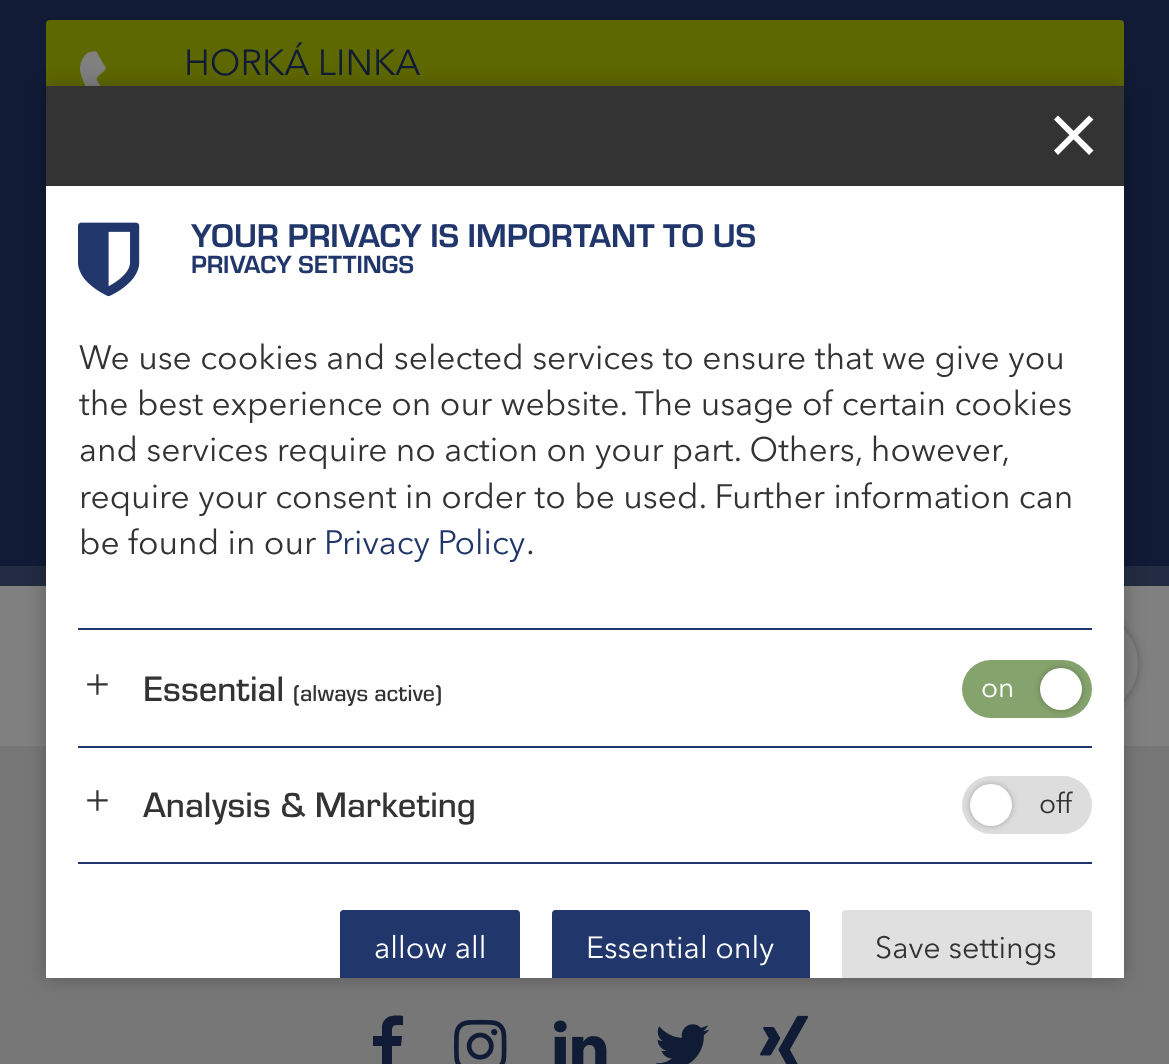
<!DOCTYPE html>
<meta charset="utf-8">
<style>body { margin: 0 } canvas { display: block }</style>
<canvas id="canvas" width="1169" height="1064"></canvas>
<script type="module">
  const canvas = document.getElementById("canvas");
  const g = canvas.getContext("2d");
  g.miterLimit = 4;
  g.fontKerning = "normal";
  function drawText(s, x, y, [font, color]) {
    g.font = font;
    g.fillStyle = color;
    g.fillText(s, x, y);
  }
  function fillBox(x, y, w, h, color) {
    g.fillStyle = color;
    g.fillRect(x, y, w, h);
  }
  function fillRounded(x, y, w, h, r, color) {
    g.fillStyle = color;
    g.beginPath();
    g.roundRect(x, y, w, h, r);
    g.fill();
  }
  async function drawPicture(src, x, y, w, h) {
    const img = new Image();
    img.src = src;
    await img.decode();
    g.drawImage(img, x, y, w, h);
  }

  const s1 = ["36px Avenir Next", "#111B36"];
  const s2 = ["bold 34.25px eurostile", "#21366B"];
  const s3 = ["bold 25.75px eurostile", "#21366B"];
  const s4 = ["33.65px Avenir Next", "#333333"];
  const s5 = ["33.65px Avenir Next", "#21366B"];
  const s6 = ["44px Liberation Serif", "#333333"];
  const s7 = ["36.75px eurostile", "#333333"];
  const s8 = ["24px eurostile", "#333333"];
  const s9 = ["28px Avenir Next", "#FFFFFF"];
  const s10 = ["28px Avenir Next", "#333333"];
  const s11 = ["30.5px Avenir Next", "#FFFFFF"];
  const s12 = ["30.5px Avenir Next", "#333333"];

  fillBox(0, 0, 1169, 1064, "#808080");
  fillBox(0, 0, 1169, 566, "#111B36");
  g.fillStyle = "#5E6800";
  g.beginPath();
  g.roundRect(47, 21, 1076, 134, 3);
  g.fill();
  g.strokeStyle = "#5E6800";
  g.lineWidth = 2;
  g.stroke();
  await drawPicture("pic1.png", 80, 51, 26, 35);
  drawText("HORKÁ LINKA", 184, 75, s1);
  fillBox(0, 566, 1169, 20, "#232C42");
  g.fillStyle = "rgba(0, 0, 0, 0.25)";
  g.filter = "blur(5px)";
  g.beginPath();
  g.roundRect(1038, 614, 100, 100, 50);
  g.fill();
  g.filter = "none";
  g.fillStyle = "#808080";
  g.beginPath();
  g.arc(1088, 664, 50, 0, Math.PI * 2);
  g.fill();
  fillBox(0, 746, 1169, 318, "#777777");
  g.fillStyle = "rgba(0, 0, 0, 0.25)";
  g.filter = "blur(10px)";
  g.beginPath();
  g.rect(46, 86, 1078, 892);
  g.fill();
  g.filter = "none";
  fillBox(46, 186, 1078, 792, "#FFFFFF");
  fillBox(46, 86, 1078, 100, "#333333");
  g.fillStyle = "#FFFFFF";
  g.beginPath();
  g.moveTo(1089, 115.5);
  g.lineTo(1093.5, 119.5);
  g.lineTo(1058, 155);
  g.lineTo(1054, 150.5);
  g.closePath();
  g.fill();
  g.beginPath();
  g.moveTo(1093.5, 150.5);
  g.lineTo(1089, 155);
  g.lineTo(1054, 119.5);
  g.lineTo(1058, 115.5);
  g.closePath();
  g.fill();
  await drawPicture("pic2.png", 78, 222, 62, 75);
  drawText("YOUR PRIVACY IS IMPORTANT TO US", 191, 247, s2);
  drawText("PRIVACY SETTINGS", 191, 273, s3);
  drawText("We use cookies and selected services to ensure that we give you", 79, 369, s4);
  drawText("the best experience on our website. The usage of certain cookies", 79, 415, s4);
  g.wordSpacing = "-0.1px";
  drawText("and services require no action on your part. Others, however,", 79, 461, s4);
  g.wordSpacing = "0px";
  drawText("require your consent in order to be used. Further information can", 79, 508, s4);
  drawText("be found in our", 79, 554, s4);
  g.wordSpacing = "-1px";
  drawText("Privacy Policy", 324, 554, s5);
  g.wordSpacing = "0px";
  drawText(".", 526, 554, s4);
  fillBox(78, 628, 1014, 2, "#21366B");
  fillBox(78, 746, 1014, 2, "#21366B");
  drawText("+", 85, 699, s6);
  drawText("Essential", 143, 701, s7);
  drawText("(always active)", 293, 701, s8);
  fillRounded(962, 660, 130, 58, 29, "#85A36D");
  drawText("on", 981, 697, s9);
  g.fillStyle = "rgba(0, 0, 0, 0.25)";
  g.filter = "blur(3px)";
  g.beginPath();
  g.roundRect(1040, 668, 42, 42, 21);
  g.fill();
  g.filter = "none";
  g.fillStyle = "#FFFFFF";
  g.beginPath();
  g.arc(1061, 689, 21, 0, Math.PI * 2);
  g.fill();
  fillBox(78, 862, 1014, 2, "#21366B");
  drawText("+", 85, 815, s6);
  drawText("Analysis & Marketing", 143, 817, s7);
  fillRounded(962, 776, 130, 58, 29, "#DDDDDD");
  g.fillStyle = "rgba(0, 0, 0, 0.25)";
  g.filter = "blur(3px)";
  g.beginPath();
  g.roundRect(970, 784, 42, 42, 21);
  g.fill();
  g.filter = "none";
  g.fillStyle = "#FFFFFF";
  g.beginPath();
  g.arc(991, 805, 21, 0, Math.PI * 2);
  g.fill();
  drawText("off", 1039, 813, s10);
  g.fillStyle = "#21366B";
  g.beginPath();
  g.roundRect(340, 910, 180, 68, [4, 4, 0, 0]);
  g.fill();
  g.beginPath();
  g.moveTo(344, 910);
  g.bezierCurveTo(342, 910, 340, 912, 340, 914);
  g.lineTo(340, 978);
  g.lineTo(342, 978);
  g.lineTo(342, 914);
  g.bezierCurveTo(342, 913, 343, 912, 344, 912);
  g.lineTo(516, 912);
  g.bezierCurveTo(517, 912, 518, 913, 518, 914);
  g.lineTo(518, 978);
  g.lineTo(520, 978);
  g.lineTo(520, 914);
  g.bezierCurveTo(520, 912, 518, 910, 516, 910);
  g.closePath();
  g.fill();
  drawText("allow all", 374, 958, s11);
  g.fillStyle = "#21366B";
  g.beginPath();
  g.roundRect(552, 910, 258, 68, [4, 4, 0, 0]);
  g.fill();
  g.beginPath();
  g.moveTo(556, 910);
  g.bezierCurveTo(554, 910, 552, 912, 552, 914);
  g.lineTo(552, 978);
  g.lineTo(554, 978);
  g.lineTo(554, 914);
  g.bezierCurveTo(554, 913, 555, 912, 556, 912);
  g.lineTo(806, 912);
  g.bezierCurveTo(807, 912, 808, 913, 808, 914);
  g.lineTo(808, 978);
  g.lineTo(810, 978);
  g.lineTo(810, 914);
  g.bezierCurveTo(810, 912, 808, 910, 806, 910);
  g.closePath();
  g.fill();
  drawText("Essential only", 586, 958, s11);
  g.fillStyle = "#E0E0E0";
  g.beginPath();
  g.roundRect(842, 910, 250, 68, [4, 4, 0, 0]);
  g.fill();
  drawText("Save settings", 875, 958, s12);
  g.fillStyle = "#111B36";
  g.beginPath();
  g.moveTo(403, 1016);
  g.lineTo(403, 1025);
  g.bezierCurveTo(391, 1025, 392, 1025, 392, 1036);
  g.lineTo(402, 1036);
  g.lineTo(401, 1046);
  g.lineTo(392, 1046);
  g.lineTo(392, 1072);
  g.lineTo(382, 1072);
  g.lineTo(382, 1046);
  g.lineTo(373, 1046);
  g.lineTo(373, 1036);
  g.lineTo(382, 1036);
  g.lineTo(382, 1026);
  g.bezierCurveTo(384, 1015, 394, 1015, 403, 1016);
  g.closePath();
  g.fill();
  await drawPicture("pic3.png", 454, 1019, 53, 45);
  await drawPicture("pic4.png", 554, 1020, 53, 44);
  await drawPicture("pic5.png", 655, 1024, 55, 40);
  await drawPicture("pic6.png", 760, 1015, 48, 49);
</script>
